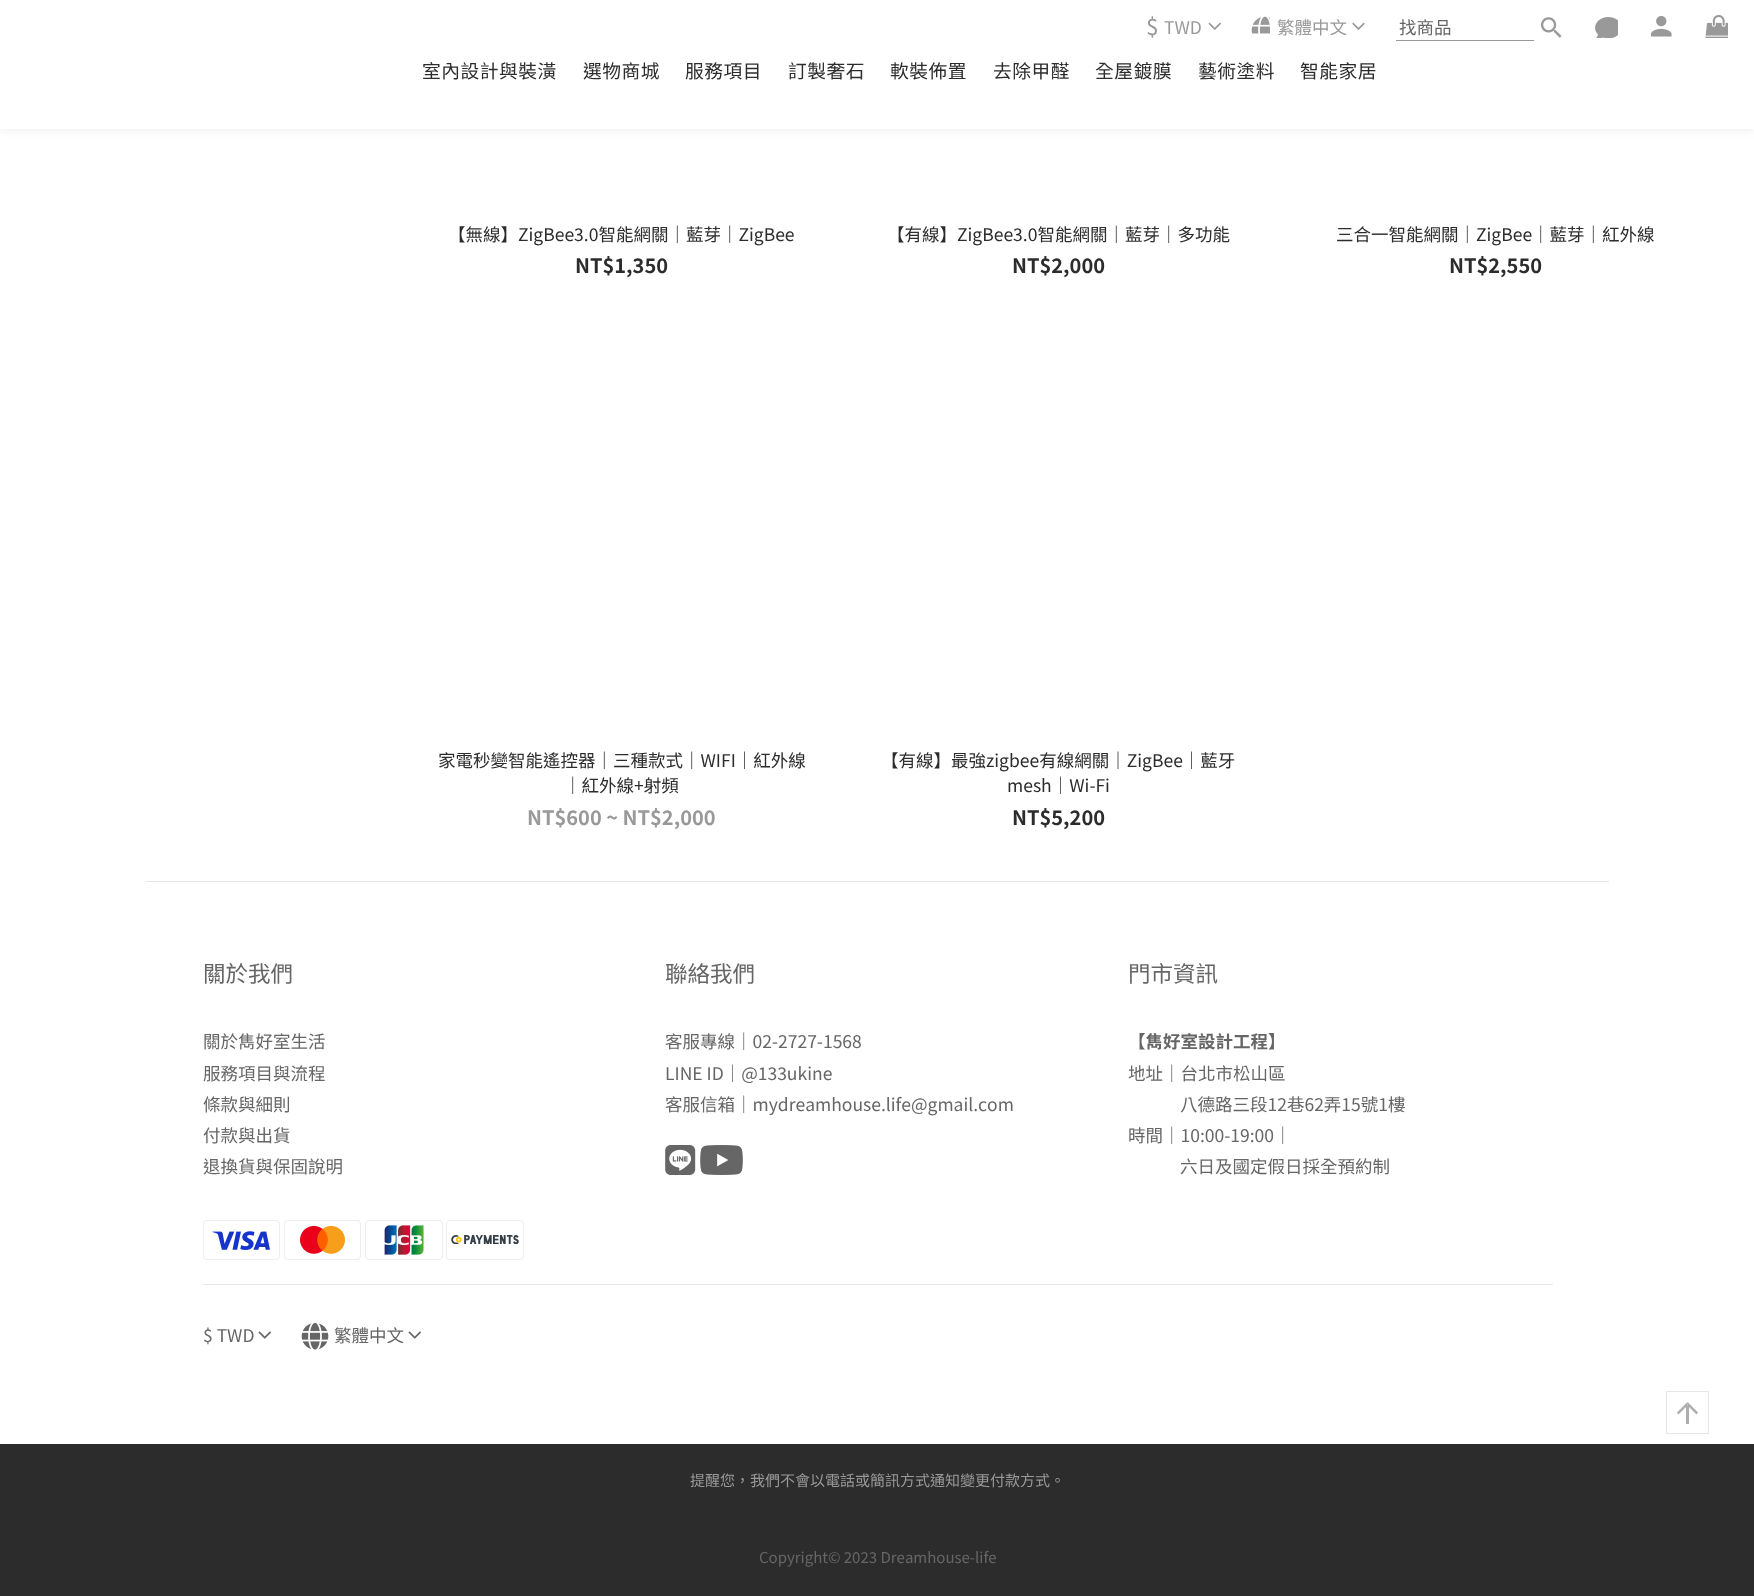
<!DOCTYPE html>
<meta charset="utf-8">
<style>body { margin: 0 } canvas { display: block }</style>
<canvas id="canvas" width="1754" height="1596"></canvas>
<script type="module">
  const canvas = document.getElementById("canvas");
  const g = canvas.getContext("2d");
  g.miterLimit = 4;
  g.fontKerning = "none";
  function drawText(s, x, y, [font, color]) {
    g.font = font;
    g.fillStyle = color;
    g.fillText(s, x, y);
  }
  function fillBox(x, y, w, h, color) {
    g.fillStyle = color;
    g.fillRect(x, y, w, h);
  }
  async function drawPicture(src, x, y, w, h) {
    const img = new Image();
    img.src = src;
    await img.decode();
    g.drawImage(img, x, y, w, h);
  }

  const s1 = ["22.5px Noto Sans TC", "#999999"];
  const s2 = ["17.5px Noto Sans TC", "#999999"];
  const s3 = ["17.5px Noto Sans TC", "#666666"];
  const s4 = ["18.75px Noto Sans TC", "#2C2C2C"];
  const s5 = ["17.5px Noto Sans TC", "#2C2C2C"];
  const s6 = ["bold 20px Noto Sans TC", "#2C2C2C"];
  const s7 = ["bold 20px Noto Sans TC", "#999999"];
  const s8 = ["22.5px Noto Sans TC", "#666666"];
  const s9 = ["bold 17.5px Noto Sans TC", "#666666"];
  const s10 = ["15px Noto Sans TC", "#999999"];
  const s11 = ["15px Noto Sans TC", "#666666"];

  fillBox(0, 0, 1754, 1596, "#FFFFFF");
  g.fillStyle = "rgba(0, 0, 0, 0.06)";
  g.filter = "blur(4px)";
  g.beginPath();
  g.rect(0, 3, 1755, 128);
  g.fill();
  g.filter = "none";
  fillBox(0, 0, 1754, 129, "#FFFFFF");
  g.letterSpacing = "1px";
  drawText("$", 1146, 35, s1);
  g.letterSpacing = "0px";
  drawText("TWD", 1164, 34, s2);
  await drawPicture("pic1.png", 1208, 22, 13, 8);
  await drawPicture("pic2.png", 1251, 16, 19, 18);
  drawText("繁體中文", 1277, 34, s2);
  await drawPicture("pic3.png", 1352, 22, 13, 8);
  fillBox(1396, 40, 138, 1, "#999999");
  drawText("找商品", 1399, 34, s3);
  await drawPicture("pic4.png", 1541, 17, 21, 21);
  await drawPicture("pic5.png", 1595, 17, 23, 21);
  await drawPicture("pic6.png", 1650, 16, 22, 21);
  await drawPicture("pic7.png", 1705, 15, 23, 23);
  g.letterSpacing = "0.5px";
  drawText("室內設計與裝潢", 422, 78, s4);
  drawText("選物商城", 583, 78, s4);
  drawText("服務項目", 685, 78, s4);
  drawText("訂製奢石", 788, 78, s4);
  drawText("軟裝佈置", 890, 78, s4);
  drawText("去除甲醛", 993, 78, s4);
  drawText("全屋鍍膜", 1095, 78, s4);
  drawText("藝術塗料", 1198, 78, s4);
  drawText("智能家居", 1300, 78, s4);
  g.letterSpacing = "0px";
  drawText("【無線】ZigBee3.0智能網關｜藍芽｜ZigBee", 448, 241, s5);
  drawText("NT$1,350", 575, 273, s6);
  drawText("【有線】ZigBee3.0智能網關｜藍芽｜多功能", 887, 241, s5);
  drawText("NT$2,000", 1012, 273, s6);
  drawText("三合一智能網關｜ZigBee｜藍芽｜紅外線", 1336, 241, s5);
  drawText("NT$2,550", 1449, 273, s6);
  drawText("家電秒變智能遙控器｜三種款式｜WIFI｜紅外線", 438, 767, s5);
  drawText("｜紅外線+射頻", 564, 792, s5);
  drawText("NT$600 ~ NT$2,000", 527, 825, s7);
  drawText("【有線】最強zigbee有線網關｜ZigBee｜藍牙", 881, 767, s5);
  drawText("mesh｜Wi-Fi", 1007, 792, s5);
  drawText("NT$5,200", 1012, 825, s6);
  fillBox(146, 881, 1463, 1, "#E6E6E6");
  drawText("關於我們", 203, 982, s8);
  drawText("關於雋好室生活", 203, 1048, s3);
  drawText("服務項目與流程", 203, 1080, s3);
  drawText("條款與細則", 203, 1111, s3);
  drawText("付款與出貨", 203, 1142, s3);
  drawText("退換貨與保固說明", 203, 1173, s3);
  drawText("聯絡我們", 665, 982, s8);
  drawText("客服專線｜02-2727-1568", 665, 1048, s3);
  drawText("LINE ID｜@133ukine", 665, 1080, s3);
  drawText("客服信箱｜mydreamhouse.life@gmail.com", 665, 1111, s3);
  await drawPicture("pic8.png", 665, 1145, 31, 30);
  await drawPicture("pic9.png", 700, 1145, 43, 30);
  drawText("門市資訊", 1128, 982, s8);
  drawText("【雋好室設計工程】", 1128, 1048, s9);
  drawText("地址｜台北市松山區", 1128, 1080, s3);
  drawText("八德路三段12巷62弄15號1樓", 1180, 1111, s3);
  drawText("時間｜10:00-19:00｜", 1128, 1142, s3);
  drawText("六日及國定假日採全預約制", 1180, 1173, s3);
  await drawPicture("pic10.png", 203, 1220, 77, 40);
  await drawPicture("pic11.png", 284, 1220, 77, 40);
  await drawPicture("pic12.png", 365, 1220, 78, 40);
  await drawPicture("pic13.png", 446, 1220, 78, 40);
  fillBox(203, 1284, 1350, 1, "#E6E6E6");
  drawText("$ TWD", 203, 1342, s3);
  await drawPicture("pic14.png", 258, 1331, 13, 8);
  await drawPicture("pic15.png", 301, 1323, 28, 27);
  drawText("繁體中文", 334, 1342, s3);
  await drawPicture("pic14.png", 408, 1331, 13, 8);
  fillBox(0, 1444, 1754, 152, "#2C2C2C");
  drawText("提醒您，我們不會以電話或簡訊方式通知變更付款方式。", 690, 1486, s10);
  drawText("Copyright© 2023 Dreamhouse-life", 759, 1563, s11);
  g.strokeStyle = "#E6E6E6";
  g.strokeRect(1666.5, 1391.5, 42, 42);
  g.fillStyle = "#ADADAD";
  g.beginPath();
  g.moveTo(1687.5, 1402);
  g.lineTo(1698, 1412.5);
  g.lineTo(1696.5, 1414.5);
  g.lineTo(1687.5, 1405.5);
  g.closePath();
  g.fill();
  g.fillStyle = "rgba(153, 153, 153, 0.8)";
  g.beginPath();
  g.moveTo(1677, 1412.5);
  g.lineTo(1687.5, 1402);
  g.lineTo(1687.5, 1405.5);
  g.lineTo(1678.5, 1414.5);
  g.closePath();
  g.fill();
  fillBox(1686, 1406, 3, 18, "rgba(153, 153, 153, 0.8)");
</script>
